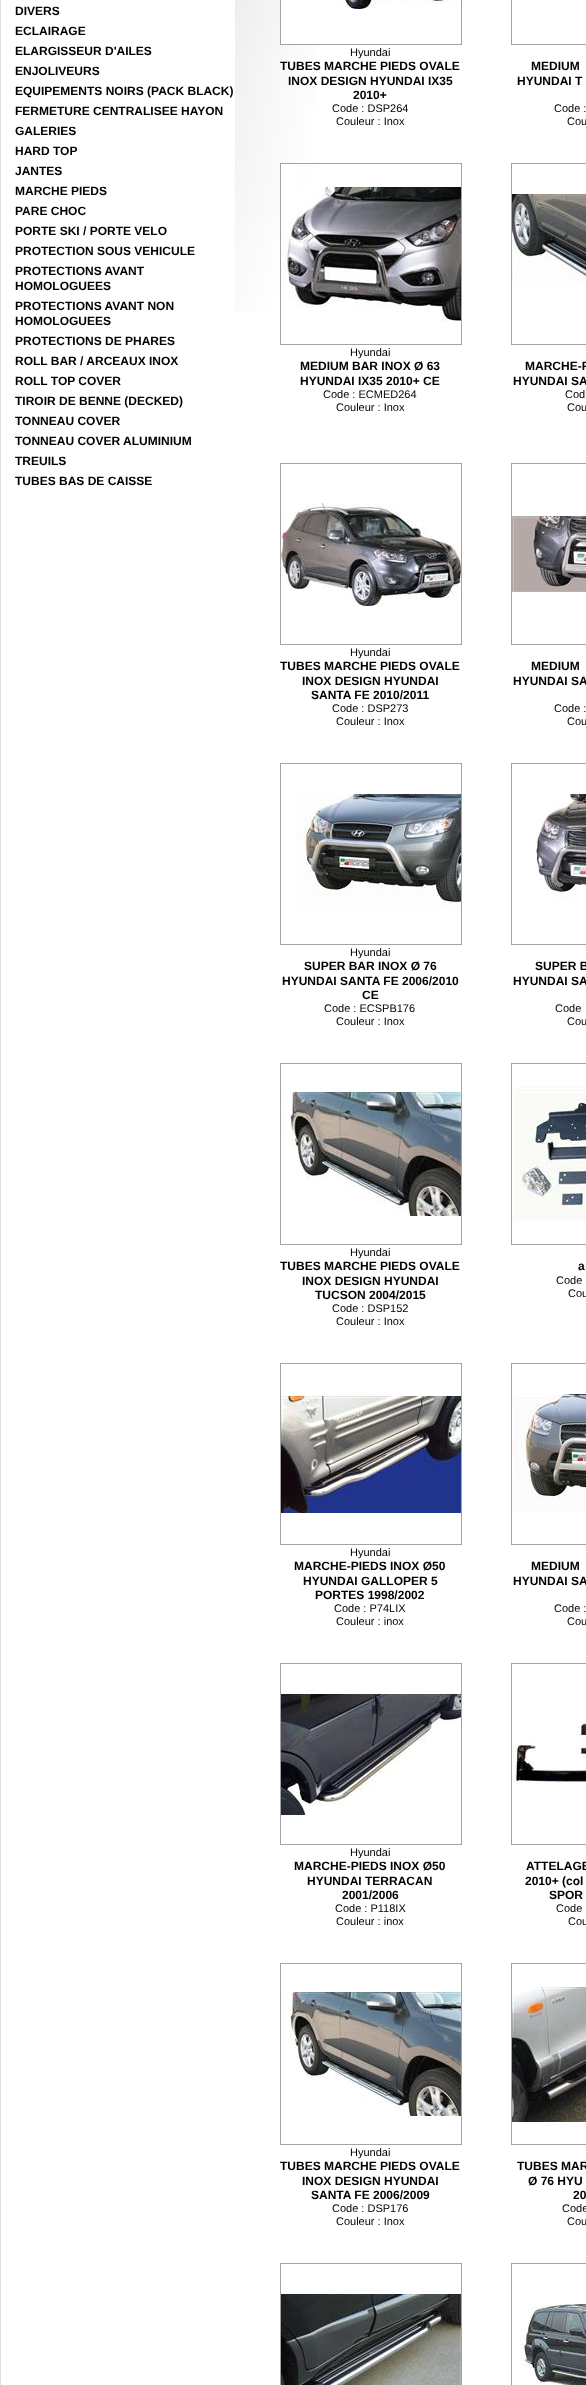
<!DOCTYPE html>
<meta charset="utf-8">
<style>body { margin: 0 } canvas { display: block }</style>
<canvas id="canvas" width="586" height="2385"></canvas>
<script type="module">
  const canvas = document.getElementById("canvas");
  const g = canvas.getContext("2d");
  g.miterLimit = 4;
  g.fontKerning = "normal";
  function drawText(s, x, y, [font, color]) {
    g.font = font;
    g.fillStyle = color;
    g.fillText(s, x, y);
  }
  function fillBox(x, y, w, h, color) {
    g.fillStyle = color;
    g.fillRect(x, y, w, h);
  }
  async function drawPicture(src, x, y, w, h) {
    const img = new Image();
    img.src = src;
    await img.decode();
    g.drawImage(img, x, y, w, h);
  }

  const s1 = ["bold 12px Liberation Sans", "#000000"];
  const s2 = ["11px Liberation Sans", "#000000"];

  fillBox(0, 0, 586, 2385, "#FFFFFF");
  g.strokeStyle = "#DFDFE0";
  g.strokeRect(0.5, -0.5, 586, 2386);
  drawText("DIVERS", 15, 15, s1);
  drawText("ECLAIRAGE", 15, 35, s1);
  drawText("ELARGISSEUR D'AILES", 15, 55, s1);
  drawText("ENJOLIVEURS", 15, 75, s1);
  drawText("EQUIPEMENTS NOIRS (PACK BLACK)", 15, 95, s1);
  drawText("FERMETURE CENTRALISEE HAYON", 15, 115, s1);
  drawText("GALERIES", 15, 135, s1);
  drawText("HARD TOP", 15, 155, s1);
  drawText("JANTES", 15, 175, s1);
  drawText("MARCHE PIEDS", 15, 195, s1);
  drawText("PARE CHOC", 15, 215, s1);
  drawText("PORTE SKI / PORTE VELO", 15, 235, s1);
  drawText("PROTECTION SOUS VEHICULE", 15, 255, s1);
  drawText("PROTECTIONS AVANT", 15, 275, s1);
  drawText("HOMOLOGUEES", 15, 290, s1);
  drawText("PROTECTIONS AVANT NON", 15, 310, s1);
  drawText("HOMOLOGUEES", 15, 325, s1);
  drawText("PROTECTIONS DE PHARES", 15, 345, s1);
  drawText("ROLL BAR / ARCEAUX INOX", 15, 365, s1);
  drawText("ROLL TOP COVER", 15, 385, s1);
  drawText("TIROIR DE BENNE (DECKED)", 15, 405, s1);
  drawText("TONNEAU COVER", 15, 425, s1);
  drawText("TONNEAU COVER ALUMINIUM", 15, 445, s1);
  drawText("TREUILS", 15, 465, s1);
  drawText("TUBES BAS DE CAISSE", 15, 485, s1);
  await drawPicture("pic1.png", 235, 0, 80, 312);
  fillBox(281, 0, 34, 44, "#FFFFFF");
  g.strokeStyle = "#A3A3A3";
  g.strokeRect(280.5, -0.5, 181, 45);
  await drawPicture("pic2.png", 341, 0, 116, 9);
  drawText("Hyundai", 350, 56, s2);
  drawText("TUBES MARCHE PIEDS OVALE", 280, 70, s1);
  drawText("INOX DESIGN HYUNDAI IX35", 288, 85, s1);
  drawText("2010+", 353, 99, s1);
  drawText("Code : DSP264", 332, 112, s2);
  drawText("Couleur : Inox", 336, 125, s2);
  g.strokeRect(511.5, -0.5, 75, 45);
  drawText("MEDIUM", 531, 70, s1);
  drawText("HYUNDAI T", 517, 85, s1);
  drawText("Code :", 554, 112, s2);
  drawText("Cou", 567, 125, s2);
  fillBox(281, 164, 16, 63, "#FFFFFF");
  g.strokeRect(280.5, 163.5, 181, 181);
  await drawPicture("pic3.png", 281, 187, 180, 135);
  drawText("Hyundai", 350, 356, s2);
  drawText("MEDIUM BAR INOX Ø 63", 300, 370, s1);
  drawText("HYUNDAI IX35 2010+ CE", 300, 385, s1);
  drawText("Code : ECMED264", 323, 398, s2);
  drawText("Couleur : Inox", 336, 411, s2);
  g.strokeRect(511.5, 163.5, 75, 181);
  await drawPicture("pic4.png", 512, 194, 74, 88);
  drawText("MARCHE-P", 525, 370, s1);
  drawText("HYUNDAI SA", 513, 385, s1);
  drawText("Cod", 565, 398, s2);
  drawText("Cou", 567, 411, s2);
  g.strokeRect(280.5, 463.5, 181, 181);
  await drawPicture("pic5.png", 281, 503, 180, 103);
  drawText("Hyundai", 350, 656, s2);
  drawText("TUBES MARCHE PIEDS OVALE", 280, 670, s1);
  drawText("INOX DESIGN HYUNDAI", 302, 685, s1);
  drawText("SANTA FE 2010/2011", 311, 699, s1);
  drawText("Code : DSP273", 332, 712, s2);
  drawText("Couleur : Inox", 336, 725, s2);
  g.strokeRect(511.5, 463.5, 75, 181);
  await drawPicture("pic6.png", 512, 516, 74, 76);
  drawText("MEDIUM", 531, 670, s1);
  drawText("HYUNDAI SA", 513, 685, s1);
  drawText("Code :", 554, 712, s2);
  drawText("Cou", 567, 725, s2);
  g.strokeRect(280.5, 763.5, 181, 181);
  await drawPicture("pic7.png", 296, 794, 165, 112);
  drawText("Hyundai", 350, 956, s2);
  drawText("SUPER BAR INOX Ø 76", 304, 970, s1);
  drawText("HYUNDAI SANTA FE 2006/2010", 282, 985, s1);
  drawText("CE", 362, 999, s1);
  drawText("Code : ECSPB176", 324, 1012, s2);
  drawText("Couleur : Inox", 336, 1025, s2);
  g.strokeRect(511.5, 763.5, 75, 181);
  await drawPicture("pic8.png", 534, 794, 52, 104);
  drawText("SUPER B", 535, 970, s1);
  drawText("HYUNDAI SA", 513, 985, s1);
  drawText("Code", 555, 1012, s2);
  drawText("Cou", 567, 1025, s2);
  g.strokeRect(280.5, 1063.5, 181, 181);
  await drawPicture("pic9.png", 281, 1092, 180, 124);
  drawText("Hyundai", 350, 1256, s2);
  drawText("TUBES MARCHE PIEDS OVALE", 280, 1270, s1);
  drawText("INOX DESIGN HYUNDAI", 302, 1285, s1);
  drawText("TUCSON 2004/2015", 315, 1299, s1);
  drawText("Code : DSP152", 332, 1312, s2);
  drawText("Couleur : Inox", 336, 1325, s2);
  g.strokeRect(511.5, 1063.5, 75, 181);
  await drawPicture("pic10.png", 512, 1087, 74, 134);
  drawText("a", 578, 1270, s1);
  drawText("Code", 556, 1284, s2);
  drawText("Cou", 568, 1297, s2);
  g.strokeRect(280.5, 1363.5, 181, 181);
  await drawPicture("pic11.png", 281, 1396, 180, 117);
  drawText("Hyundai", 350, 1556, s2);
  drawText("MARCHE-PIEDS INOX Ø50", 294, 1570, s1);
  drawText("HYUNDAI GALLOPER 5", 303, 1585, s1);
  drawText("PORTES 1998/2002", 315, 1599, s1);
  drawText("Code : P74LIX", 334, 1612, s2);
  drawText("Couleur : inox", 336, 1625, s2);
  g.strokeRect(511.5, 1363.5, 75, 181);
  await drawPicture("pic12.png", 512, 1394, 74, 117);
  drawText("MEDIUM", 531, 1570, s1);
  drawText("HYUNDAI SA", 513, 1585, s1);
  drawText("Code :", 554, 1612, s2);
  drawText("Cou", 567, 1625, s2);
  g.strokeRect(280.5, 1663.5, 181, 181);
  await drawPicture("pic13.png", 281, 1694, 180, 121);
  drawText("Hyundai", 350, 1856, s2);
  drawText("MARCHE-PIEDS INOX Ø50", 294, 1870, s1);
  drawText("HYUNDAI TERRACAN", 307, 1885, s1);
  drawText("2001/2006", 342, 1899, s1);
  drawText("Code : P118IX", 335, 1912, s2);
  drawText("Couleur : inox", 336, 1925, s2);
  g.strokeRect(511.5, 1663.5, 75, 181);
  await drawPicture("pic14.png", 512, 1721, 74, 64);
  drawText("ATTELAGE", 526, 1870, s1);
  drawText("2010+ (col", 525, 1885, s1);
  drawText("SPOR", 549, 1899, s1);
  drawText("Code", 556, 1912, s2);
  drawText("Cou", 568, 1925, s2);
  g.strokeRect(280.5, 1963.5, 181, 181);
  await drawPicture("pic9.png", 281, 1992, 180, 124);
  drawText("Hyundai", 350, 2156, s2);
  drawText("TUBES MARCHE PIEDS OVALE", 280, 2170, s1);
  drawText("INOX DESIGN HYUNDAI", 302, 2185, s1);
  drawText("SANTA FE 2006/2009", 311, 2199, s1);
  drawText("Code : DSP176", 332, 2212, s2);
  drawText("Couleur : Inox", 336, 2225, s2);
  g.strokeRect(511.5, 1963.5, 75, 181);
  await drawPicture("pic15.png", 512, 1987, 74, 135);
  drawText("TUBES MAR", 517, 2170, s1);
  drawText("Ø 76 HYU", 528, 2185, s1);
  drawText("20", 573, 2199, s1);
  drawText("Code", 562, 2212, s2);
  drawText("Cou", 567, 2225, s2);
  g.strokeRect(280.5, 2263.5, 181, 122);
  await drawPicture("pic16.png", 281, 2294, 180, 91);
  g.strokeRect(511.5, 2263.5, 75, 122);
  await drawPicture("pic17.png", 519, 2304, 67, 81);
</script>
